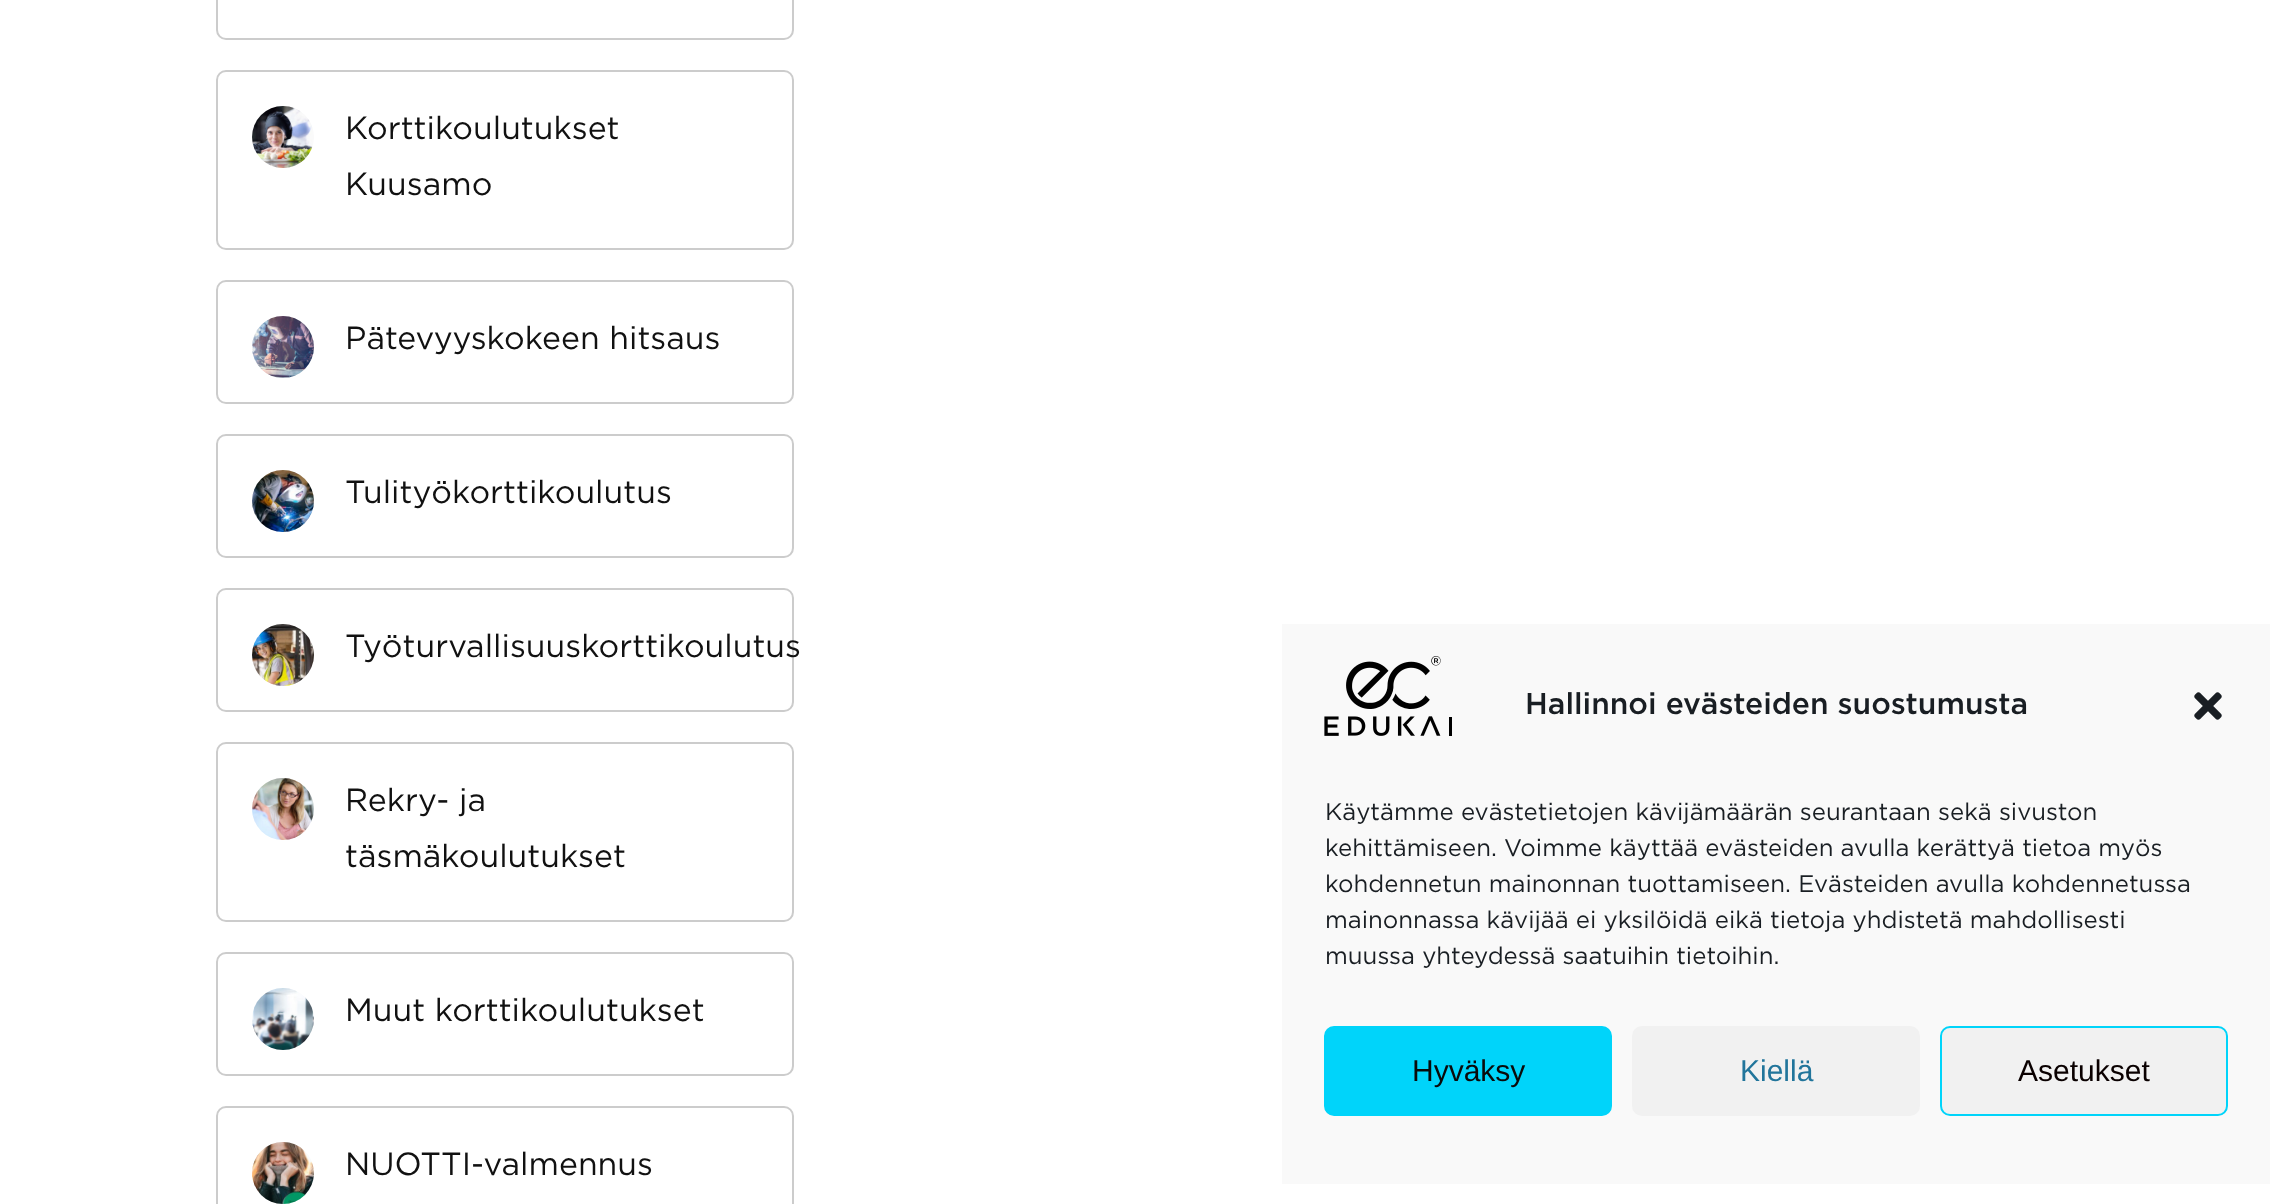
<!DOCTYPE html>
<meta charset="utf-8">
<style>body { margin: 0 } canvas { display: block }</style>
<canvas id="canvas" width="2290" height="1204"></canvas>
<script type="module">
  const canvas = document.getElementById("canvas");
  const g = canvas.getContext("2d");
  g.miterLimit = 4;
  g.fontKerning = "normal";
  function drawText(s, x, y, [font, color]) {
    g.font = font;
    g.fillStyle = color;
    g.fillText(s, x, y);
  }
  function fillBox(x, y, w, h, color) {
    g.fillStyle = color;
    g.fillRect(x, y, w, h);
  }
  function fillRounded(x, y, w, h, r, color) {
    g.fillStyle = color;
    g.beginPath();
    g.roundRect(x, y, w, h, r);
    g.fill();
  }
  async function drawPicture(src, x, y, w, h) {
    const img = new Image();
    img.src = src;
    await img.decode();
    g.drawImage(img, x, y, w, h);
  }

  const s1 = ["32px Gotham", "#111111"];
  const s2 = ["500 30px Gotham", "#191E23"];
  const s3 = ["24px Gotham", "#191E23"];
  const s4 = ["30px Liberation Sans", "#0A0A0A"];
  const s5 = ["30px Liberation Sans", "#21759B"];
  const s6 = ["30px Liberation Sans", "#0A0000"];

  fillBox(0, 0, 2290, 1204, "#FFFFFF");
  g.beginPath();
  g.roundRect(217, -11, 576, 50, 9);
  g.strokeStyle = "#CCCCCC";
  g.lineWidth = 2;
  g.stroke();
  g.beginPath();
  g.roundRect(217, 71, 576, 178, 9);
  g.stroke();
  await drawPicture("pic1.png", 252, 106, 62, 62);
  drawText("Korttikoulutukset", 345, 139, s1);
  drawText("Kuusamo", 345, 195, s1);
  g.beginPath();
  g.roundRect(217, 281, 576, 122, 9);
  g.stroke();
  await drawPicture("pic2.png", 252, 316, 62, 62);
  drawText("Pätevyyskokeen hitsaus", 345, 349, s1);
  g.beginPath();
  g.roundRect(217, 435, 576, 122, 9);
  g.stroke();
  await drawPicture("pic3.png", 252, 470, 62, 62);
  drawText("Tulityökorttikoulutus", 345, 503, s1);
  g.beginPath();
  g.roundRect(217, 589, 576, 122, 9);
  g.stroke();
  await drawPicture("pic4.png", 252, 624, 62, 62);
  drawText("Työturvallisuuskorttikoulutus", 345, 657, s1);
  g.beginPath();
  g.roundRect(217, 743, 576, 178, 9);
  g.stroke();
  await drawPicture("pic5.png", 252, 778, 62, 62);
  drawText("Rekry- ja", 345, 811, s1);
  drawText("täsmäkoulutukset", 345, 867, s1);
  g.beginPath();
  g.roundRect(217, 953, 576, 122, 9);
  g.stroke();
  await drawPicture("pic6.png", 252, 988, 62, 62);
  drawText("Muut korttikoulutukset", 345, 1021, s1);
  g.beginPath();
  g.roundRect(217, 1107, 576, 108, 9);
  g.stroke();
  await drawPicture("pic7.png", 252, 1142, 62, 62);
  drawText("NUOTTI-valmennus", 345, 1175, s1);
  fillBox(1282, 624, 988, 560, "#F9F9F9");
  await drawPicture("pic8.png", 1324, 656, 128, 80);
  drawText("Hallinnoi evästeiden suostumusta", 1525, 714, s2);
  await drawPicture("pic9.png", 2194, 692, 28, 28);
  drawText("Käytämme evästetietojen kävijämäärän seurantaan sekä sivuston", 1325, 820, s3);
  drawText("kehittämiseen. Voimme käyttää evästeiden avulla kerättyä tietoa myös", 1325, 856, s3);
  drawText("kohdennetun mainonnan tuottamiseen. Evästeiden avulla kohdennetussa", 1325, 892, s3);
  drawText("mainonnassa kävijää ei yksilöidä eikä tietoja yhdistetä mahdollisesti", 1325, 928, s3);
  drawText("muussa yhteydessä saatuihin tietoihin.", 1325, 964, s3);
  g.fillStyle = "#00D4FA";
  g.beginPath();
  g.roundRect(1325, 1027, 286, 88, 9);
  g.fill();
  g.strokeStyle = "#00D4FA";
  g.stroke();
  drawText("Hyväksy", 1412, 1081, s4);
  fillRounded(1632, 1026, 288, 90, 10, "#F1F1F1");
  drawText("Kiellä", 1740, 1081, s5);
  g.fillStyle = "#F1F1F1";
  g.beginPath();
  g.roundRect(1941, 1027, 286, 88, 9);
  g.fill();
  g.stroke();
  drawText("Asetukset", 2018, 1081, s6);
</script>
